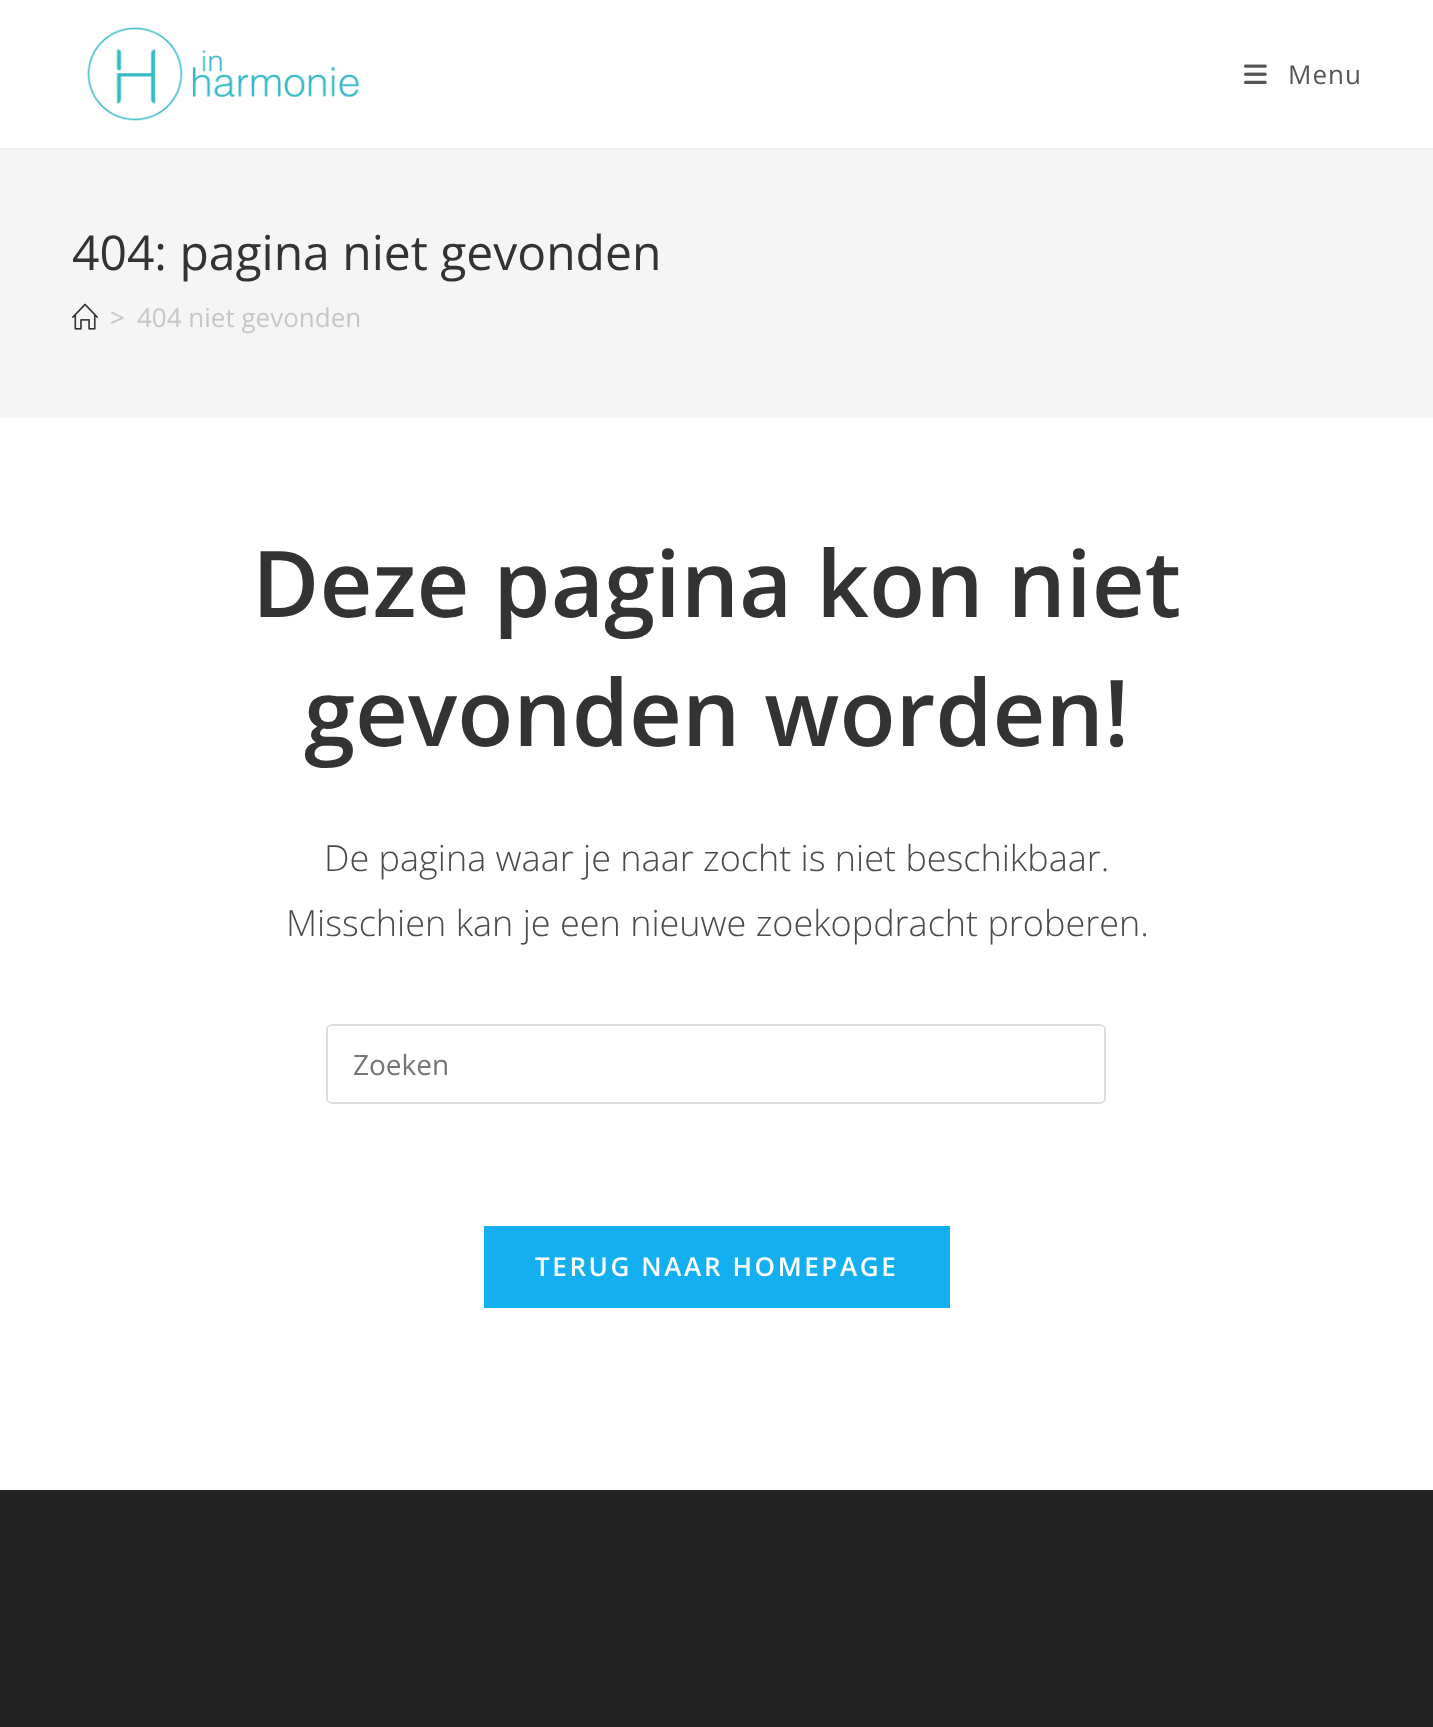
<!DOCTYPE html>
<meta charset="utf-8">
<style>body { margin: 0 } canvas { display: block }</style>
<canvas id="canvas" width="1433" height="1727"></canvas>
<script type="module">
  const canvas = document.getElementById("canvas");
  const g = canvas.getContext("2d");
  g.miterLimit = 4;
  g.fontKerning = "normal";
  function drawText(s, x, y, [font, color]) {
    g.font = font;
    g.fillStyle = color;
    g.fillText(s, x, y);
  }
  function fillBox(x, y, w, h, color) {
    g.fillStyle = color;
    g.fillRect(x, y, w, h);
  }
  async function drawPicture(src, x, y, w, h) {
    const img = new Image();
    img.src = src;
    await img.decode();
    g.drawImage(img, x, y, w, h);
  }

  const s1 = ["26px Open Sans", "#555555"];
  const s2 = ["48px Open Sans", "#333333"];
  const s3 = ["26px Open Sans", "#C6C6C6"];
  const s4 = ["600 92px Open Sans", "#333333"];
  const s5 = ["300 36px Open Sans", "#4A4A4A"];
  const s6 = ["28px Open Sans", "#757575"];
  const s7 = ["600 26px Open Sans", "#FFFFFF"];

  fillBox(0, 0, 1433, 1727, "#FFFFFF");
  fillBox(0, 148, 1433, 2, "#F1F1F1");
  await drawPicture("pic1.png", 87, 26, 273, 95);
  await drawPicture("pic2.png", 1244, 64, 23, 20);
  g.letterSpacing = "1px";
  drawText("Menu", 1288, 84, s1);
  fillBox(0, 150, 1433, 268, "#F5F5F5");
  g.letterSpacing = "0px";
  drawText("404: pagina niet gevonden", 72, 270, s2);
  await drawPicture("pic3.png", 72, 303, 26, 27);
  drawText(">", 110, 327, s3);
  drawText("404 niet gevonden", 137, 327, s3);
  drawText("Deze pagina kon niet", 252, 617, s4);
  drawText("gevonden worden!", 304, 746, s4);
  drawText("De pagina waar je naar zocht is niet beschikbaar.", 324, 871, s5);
  drawText("Misschien kan je een nieuwe zoekopdracht proberen.", 286, 936, s5);
  g.beginPath();
  g.roundRect(327, 1025, 778, 78, 5);
  g.strokeStyle = "#DDDDDD";
  g.lineWidth = 2;
  g.stroke();
  drawText("Zoeken", 353, 1075, s6);
  fillBox(484, 1226, 466, 82, "#13AFF0");
  g.letterSpacing = "2.6px";
  drawText("TERUG NAAR HOMEPAGE", 535, 1276, s7);
  fillBox(0, 1490, 1433, 237, "#222222");
</script>
